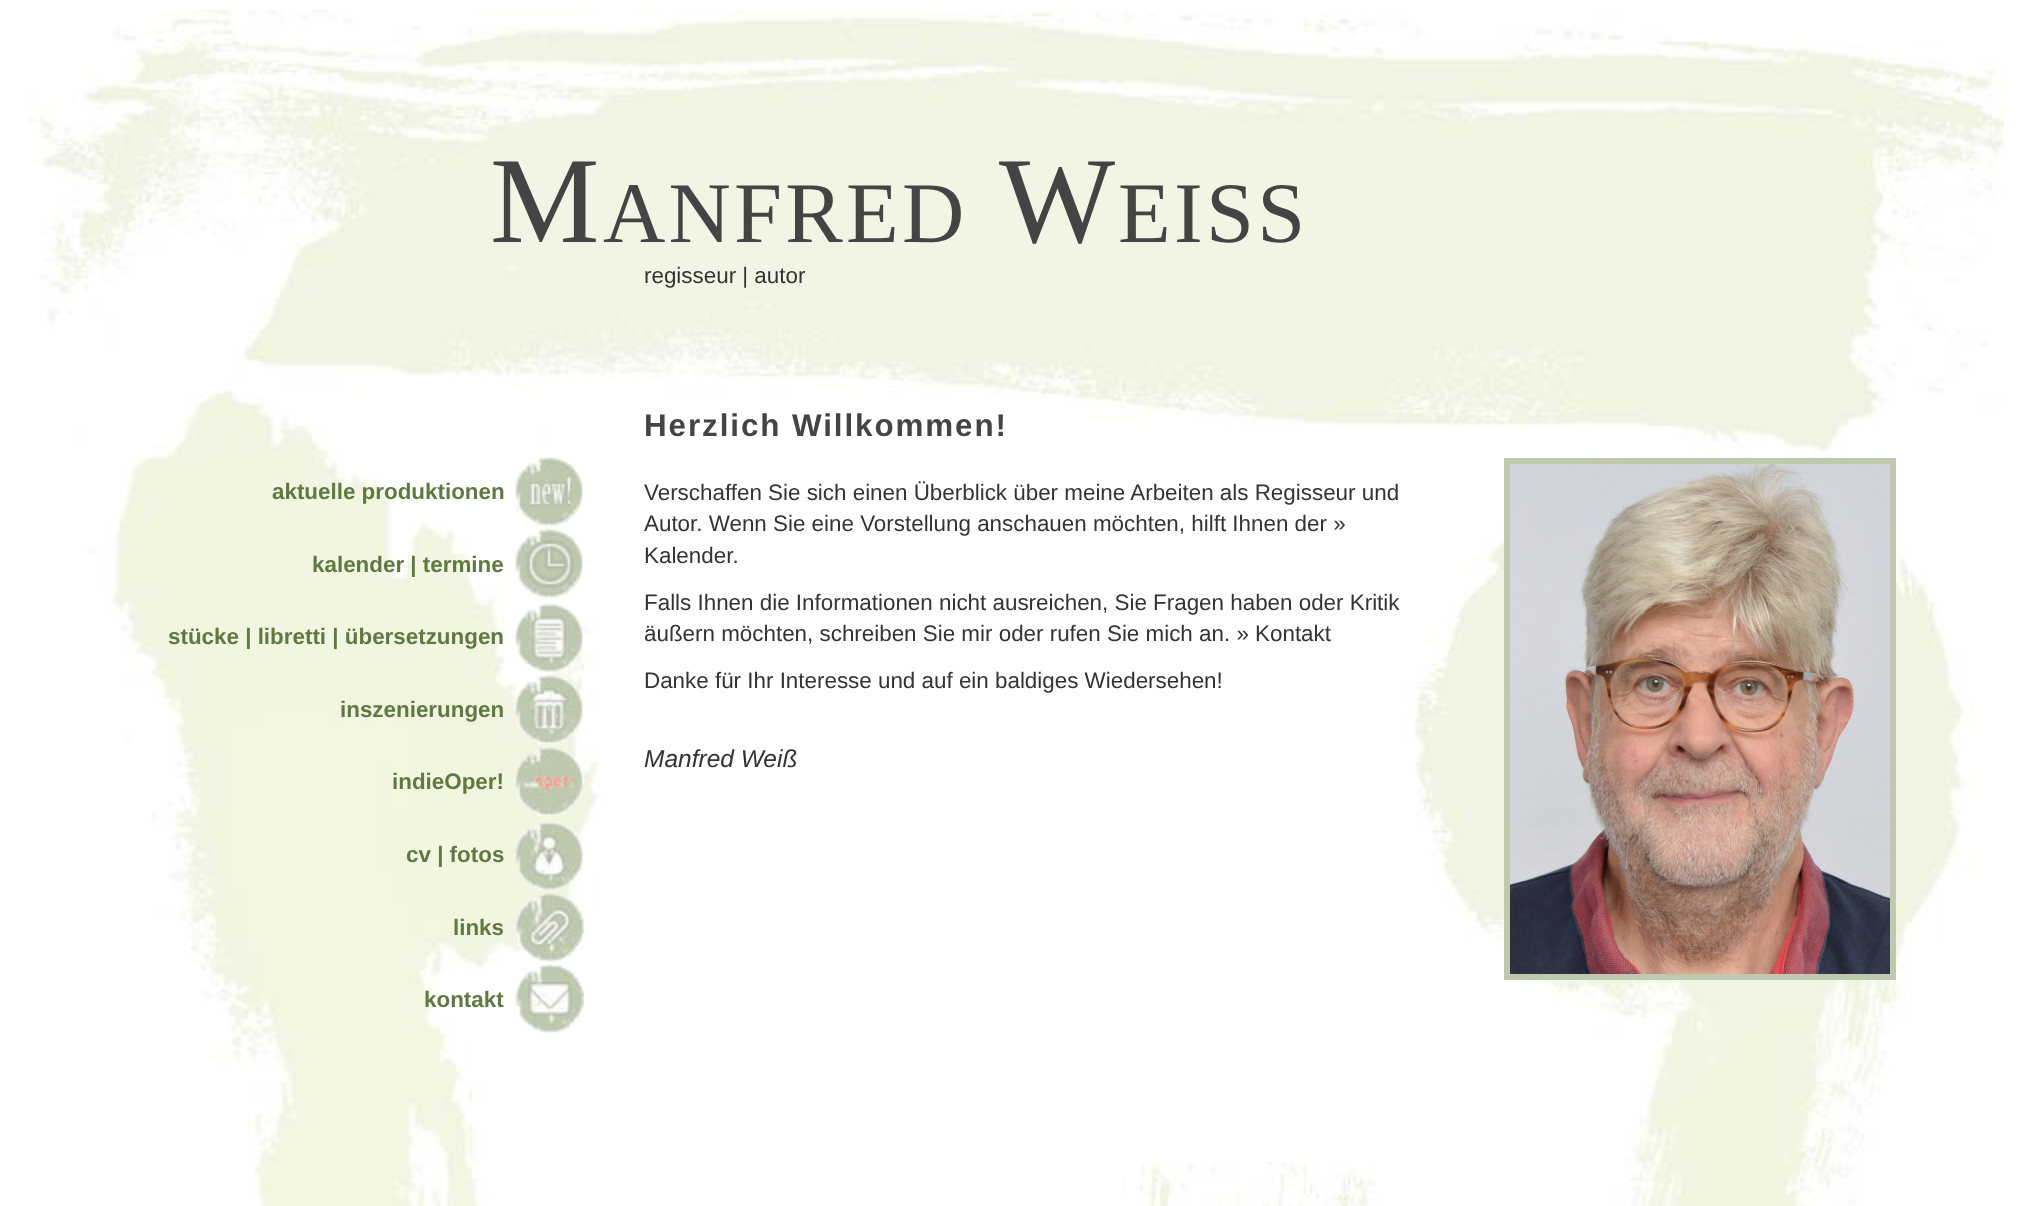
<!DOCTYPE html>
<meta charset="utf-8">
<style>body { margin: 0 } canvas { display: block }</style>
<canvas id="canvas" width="2028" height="1206"></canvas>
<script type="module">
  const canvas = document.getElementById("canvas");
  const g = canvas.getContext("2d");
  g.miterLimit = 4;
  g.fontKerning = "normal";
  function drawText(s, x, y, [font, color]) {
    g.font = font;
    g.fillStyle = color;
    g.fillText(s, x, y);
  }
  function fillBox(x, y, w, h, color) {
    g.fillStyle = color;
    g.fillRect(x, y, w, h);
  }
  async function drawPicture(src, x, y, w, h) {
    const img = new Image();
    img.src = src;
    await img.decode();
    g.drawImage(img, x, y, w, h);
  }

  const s1 = ["123px Liberation Serif", "#444444"];
  const s2 = ["86.25px Liberation Serif", "#444444"];
  const s3 = ["22.4px Liberation Sans", "#333333"];
  const s4 = ["bold 22.4px Liberation Sans", "#627842"];
  const s5 = ["bold 31.4px Liberation Sans", "#444444"];
  const s6 = ["italic 24.5px Liberation Sans", "#333333"];

  fillBox(0, 0, 2028, 1206, "#FFFFFF");
  await drawPicture("pic1.png", 28, 10, 1976, 1196);
  g.letterSpacing = "3.25px";
  drawText("M", 490, 242, s1);
  drawText("ANFRED", 603, 242, s2);
  drawText("W", 999, 242, s1);
  drawText("EISS", 1118, 242, s2);
  g.letterSpacing = "0px";
  drawText("regisseur | autor", 644, 283, s3);
  drawText("aktuelle produktionen", 272, 499, s4);
  await drawPicture("pic2.png", 515, 457, 68, 69);
  drawText("kalender | termine", 312, 572, s4);
  await drawPicture("pic3.png", 515, 528, 68, 70);
  drawText("stücke | libretti | übersetzungen", 168, 644, s4);
  await drawPicture("pic4.png", 514, 603, 70, 69);
  drawText("inszenierungen", 340, 717, s4);
  await drawPicture("pic5.png", 514, 675, 70, 69);
  drawText("indieOper!", 392, 789, s4);
  await drawPicture("pic6.png", 514, 746, 70, 70);
  drawText("cv | fotos", 406, 862, s4);
  await drawPicture("pic7.png", 514, 822, 70, 68);
  drawText("links", 453, 935, s4);
  await drawPicture("pic8.png", 514, 893, 70, 69);
  drawText("kontakt", 424, 1007, s4);
  await drawPicture("pic9.png", 515, 964, 69, 69);
  g.letterSpacing = "1.9px";
  drawText("Herzlich Willkommen!", 644, 436, s5);
  g.letterSpacing = "0px";
  drawText("Verschaffen Sie sich einen Überblick über meine Arbeiten als Regisseur und", 644, 500, s3);
  drawText("Autor. Wenn Sie eine Vorstellung anschauen möchten, hilft Ihnen der »", 644, 531, s3);
  drawText("Kalender.", 644, 563, s3);
  drawText("Falls Ihnen die Informationen nicht ausreichen, Sie Fragen haben oder Kritik", 644, 610, s3);
  drawText("äußern möchten, schreiben Sie mir oder rufen Sie mich an. » Kontakt", 644, 641, s3);
  drawText("Danke für Ihr Interesse und auf ein baldiges Wiedersehen!", 644, 688, s3);
  drawText("Manfred Weiß", 644, 767, s6);
  g.strokeStyle = "#C0C8AF";
  g.lineWidth = 6;
  g.strokeRect(1507, 461, 386, 516);
  await drawPicture("pic10.png", 1510, 464, 380, 510);
  await drawPicture("pic11.png", 1122, 1162, 256, 44);
</script>
